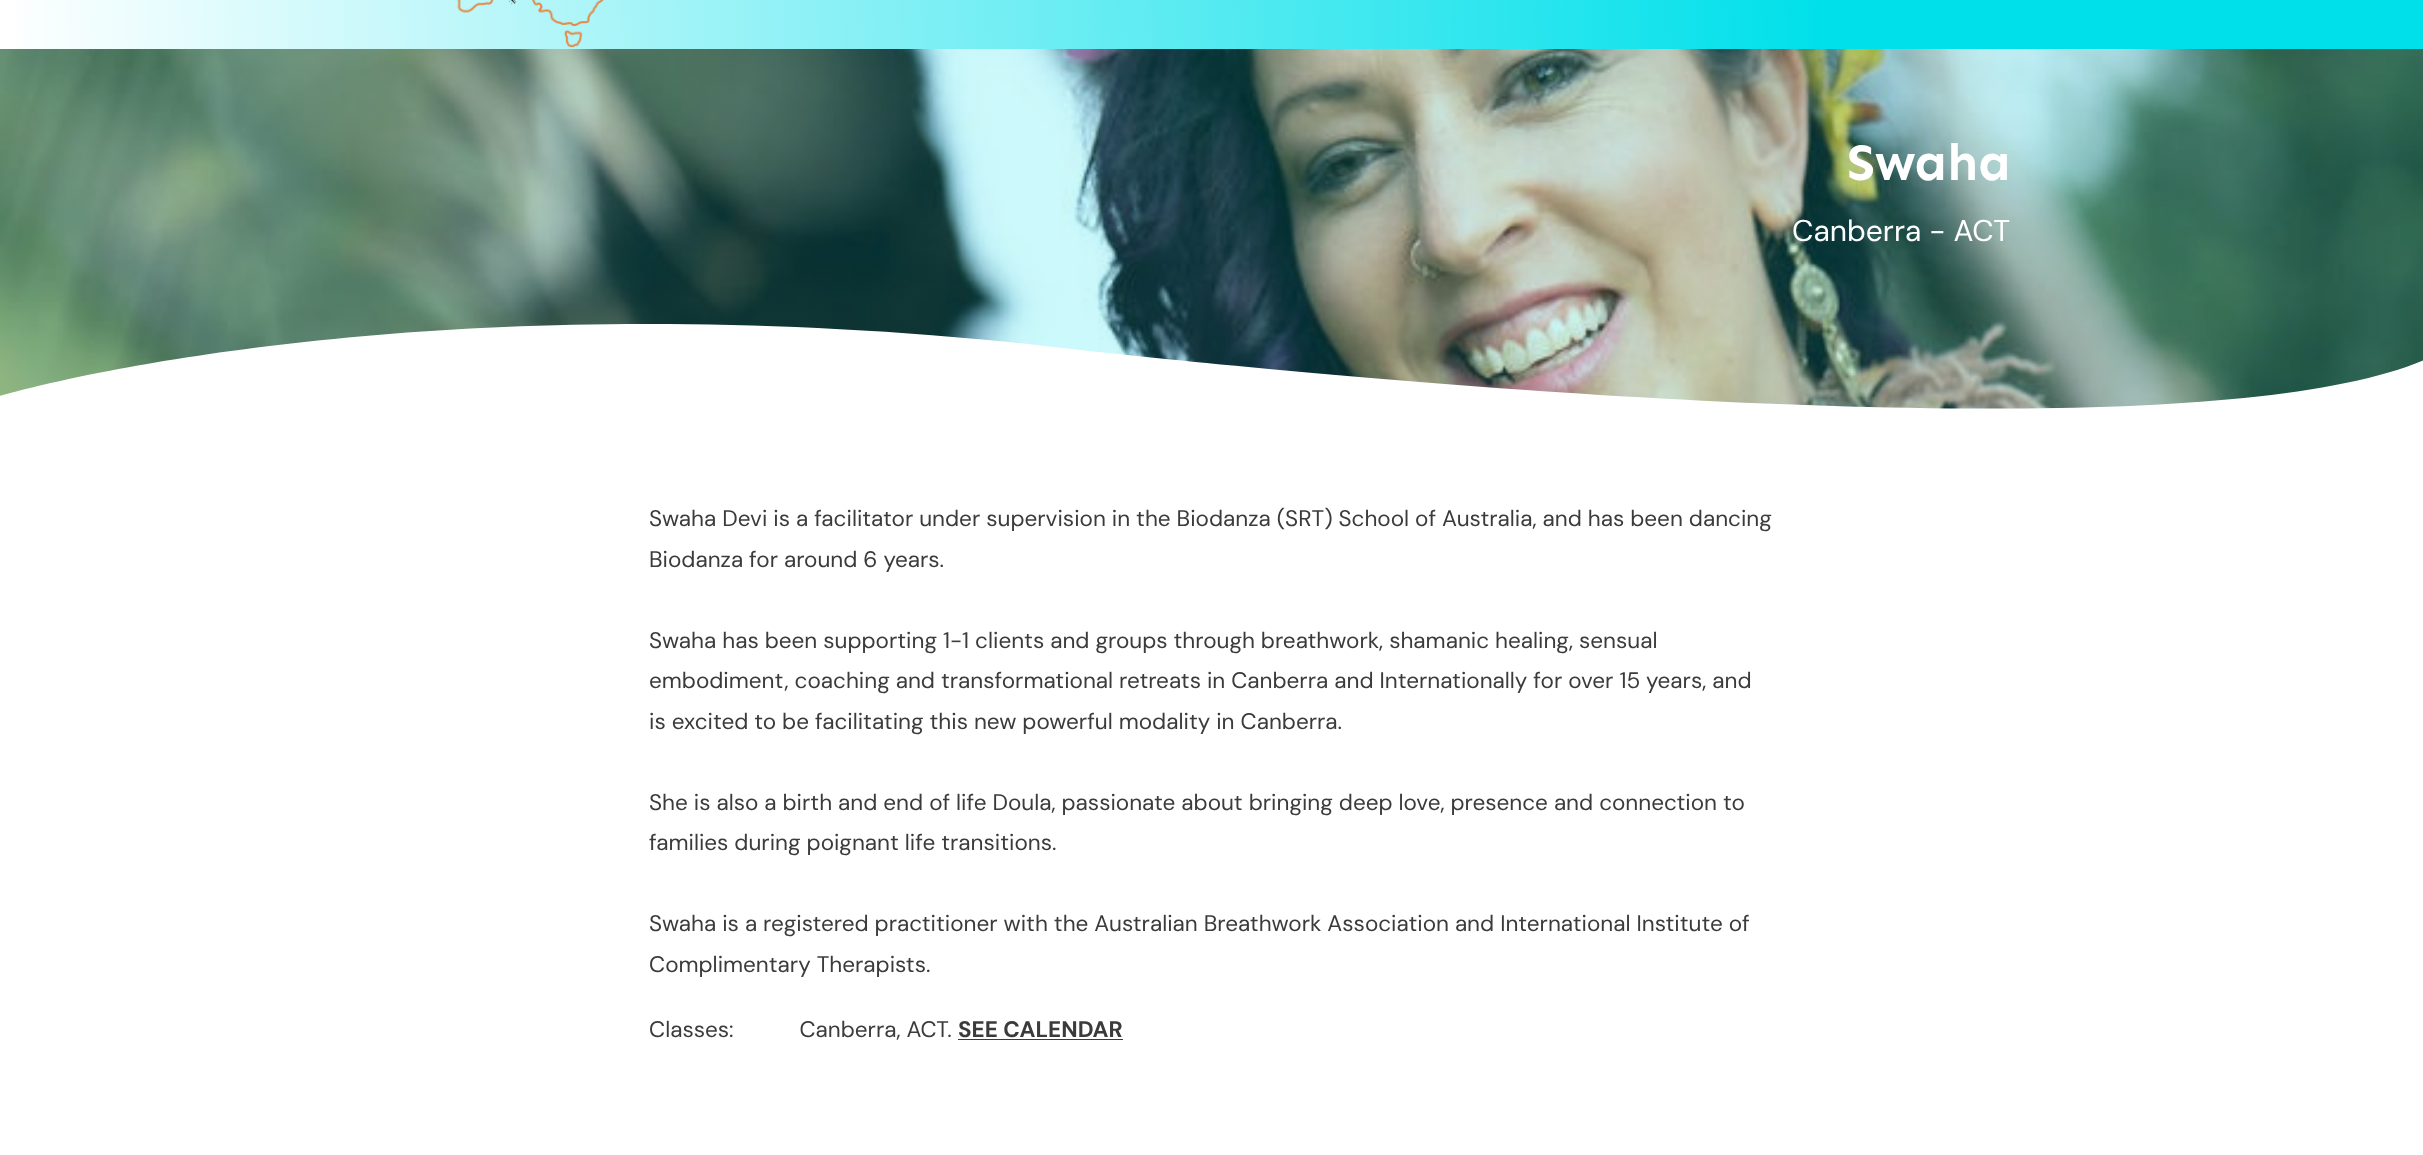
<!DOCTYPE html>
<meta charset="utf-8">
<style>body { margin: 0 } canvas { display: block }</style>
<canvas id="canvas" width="2423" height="1155"></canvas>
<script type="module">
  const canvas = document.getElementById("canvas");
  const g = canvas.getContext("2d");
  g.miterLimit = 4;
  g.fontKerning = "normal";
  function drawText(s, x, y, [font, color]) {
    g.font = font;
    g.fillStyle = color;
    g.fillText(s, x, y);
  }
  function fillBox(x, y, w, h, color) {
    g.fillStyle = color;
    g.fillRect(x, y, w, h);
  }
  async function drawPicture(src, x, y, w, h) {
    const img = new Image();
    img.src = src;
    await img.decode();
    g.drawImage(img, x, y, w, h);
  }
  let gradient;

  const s1 = ["bold 52.5px Sen", "#FFFFFF"];
  const s2 = ["30px DM Sans", "#FFFFFF"];
  const s3 = ["22.5px DM Sans", "#3B3B3B"];
  const s4 = ["bold 22.5px DM Sans", "#3B3B3B"];

  fillBox(0, 0, 2423, 1155, "#FFFFFF");
  gradient = g.createLinearGradient(-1.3, 25, 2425, -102);
  gradient.addColorStop(0, "#FFFFFF");
  gradient.addColorStop(0.75, "#00E0EA");
  g.fillStyle = gradient;
  g.fillRect(15, 0, 2408, 49);
  await drawPicture("pic1.png", 457, 0, 147, 48);
  await drawPicture("pic2.png", 0, 49, 2423, 360);
  g.save();
  g.beginPath();
  g.rect(0, 324, 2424, 100);
  g.clip();
  g.fillStyle = "#FFFFFF";
  g.beginPath();
  g.moveTo(0, 396);
  g.bezierCurveTo(0, 396, 393, 278, 1028, 344);
  g.bezierCurveTo(1028, 344, 2147, 478, 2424, 360);
  g.lineTo(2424, 424);
  g.lineTo(0, 424);
  g.closePath();
  g.fill();
  g.restore();
  drawText("Swaha", 1847, 180, s1);
  drawText("Canberra - ACT", 1792, 241, s2);
  drawText("Swaha Devi is a facilitator under supervision in the Biodanza (SRT) School of Australia, and has been dancing", 649, 526, s3);
  drawText("Biodanza for around 6 years.", 649, 567, s3);
  drawText("Swaha has been supporting 1-1 clients and groups through breathwork, shamanic healing, sensual", 649, 648, s3);
  drawText("embodiment, coaching and transformational retreats in Canberra and Internationally for over 15 years, and", 649, 688, s3);
  drawText("is excited to be facilitating this new powerful modality in Canberra.", 649, 729, s3);
  drawText("She is also a birth and end of life Doula, passionate about bringing deep love, presence and connection to", 649, 810, s3);
  drawText("families during poignant life transitions.", 649, 850, s3);
  drawText("Swaha is a registered practitioner with the Australian Breathwork Association and International Institute of", 649, 931, s3);
  drawText("Complimentary Therapists.", 649, 972, s3);
  drawText("Classes:           Canberra, ACT.", 649, 1037, s3);
  drawText("SEE CALENDAR", 958, 1037, s4);
  fillBox(958, 1039, 165, 1, "#3B3B3B");
</script>
